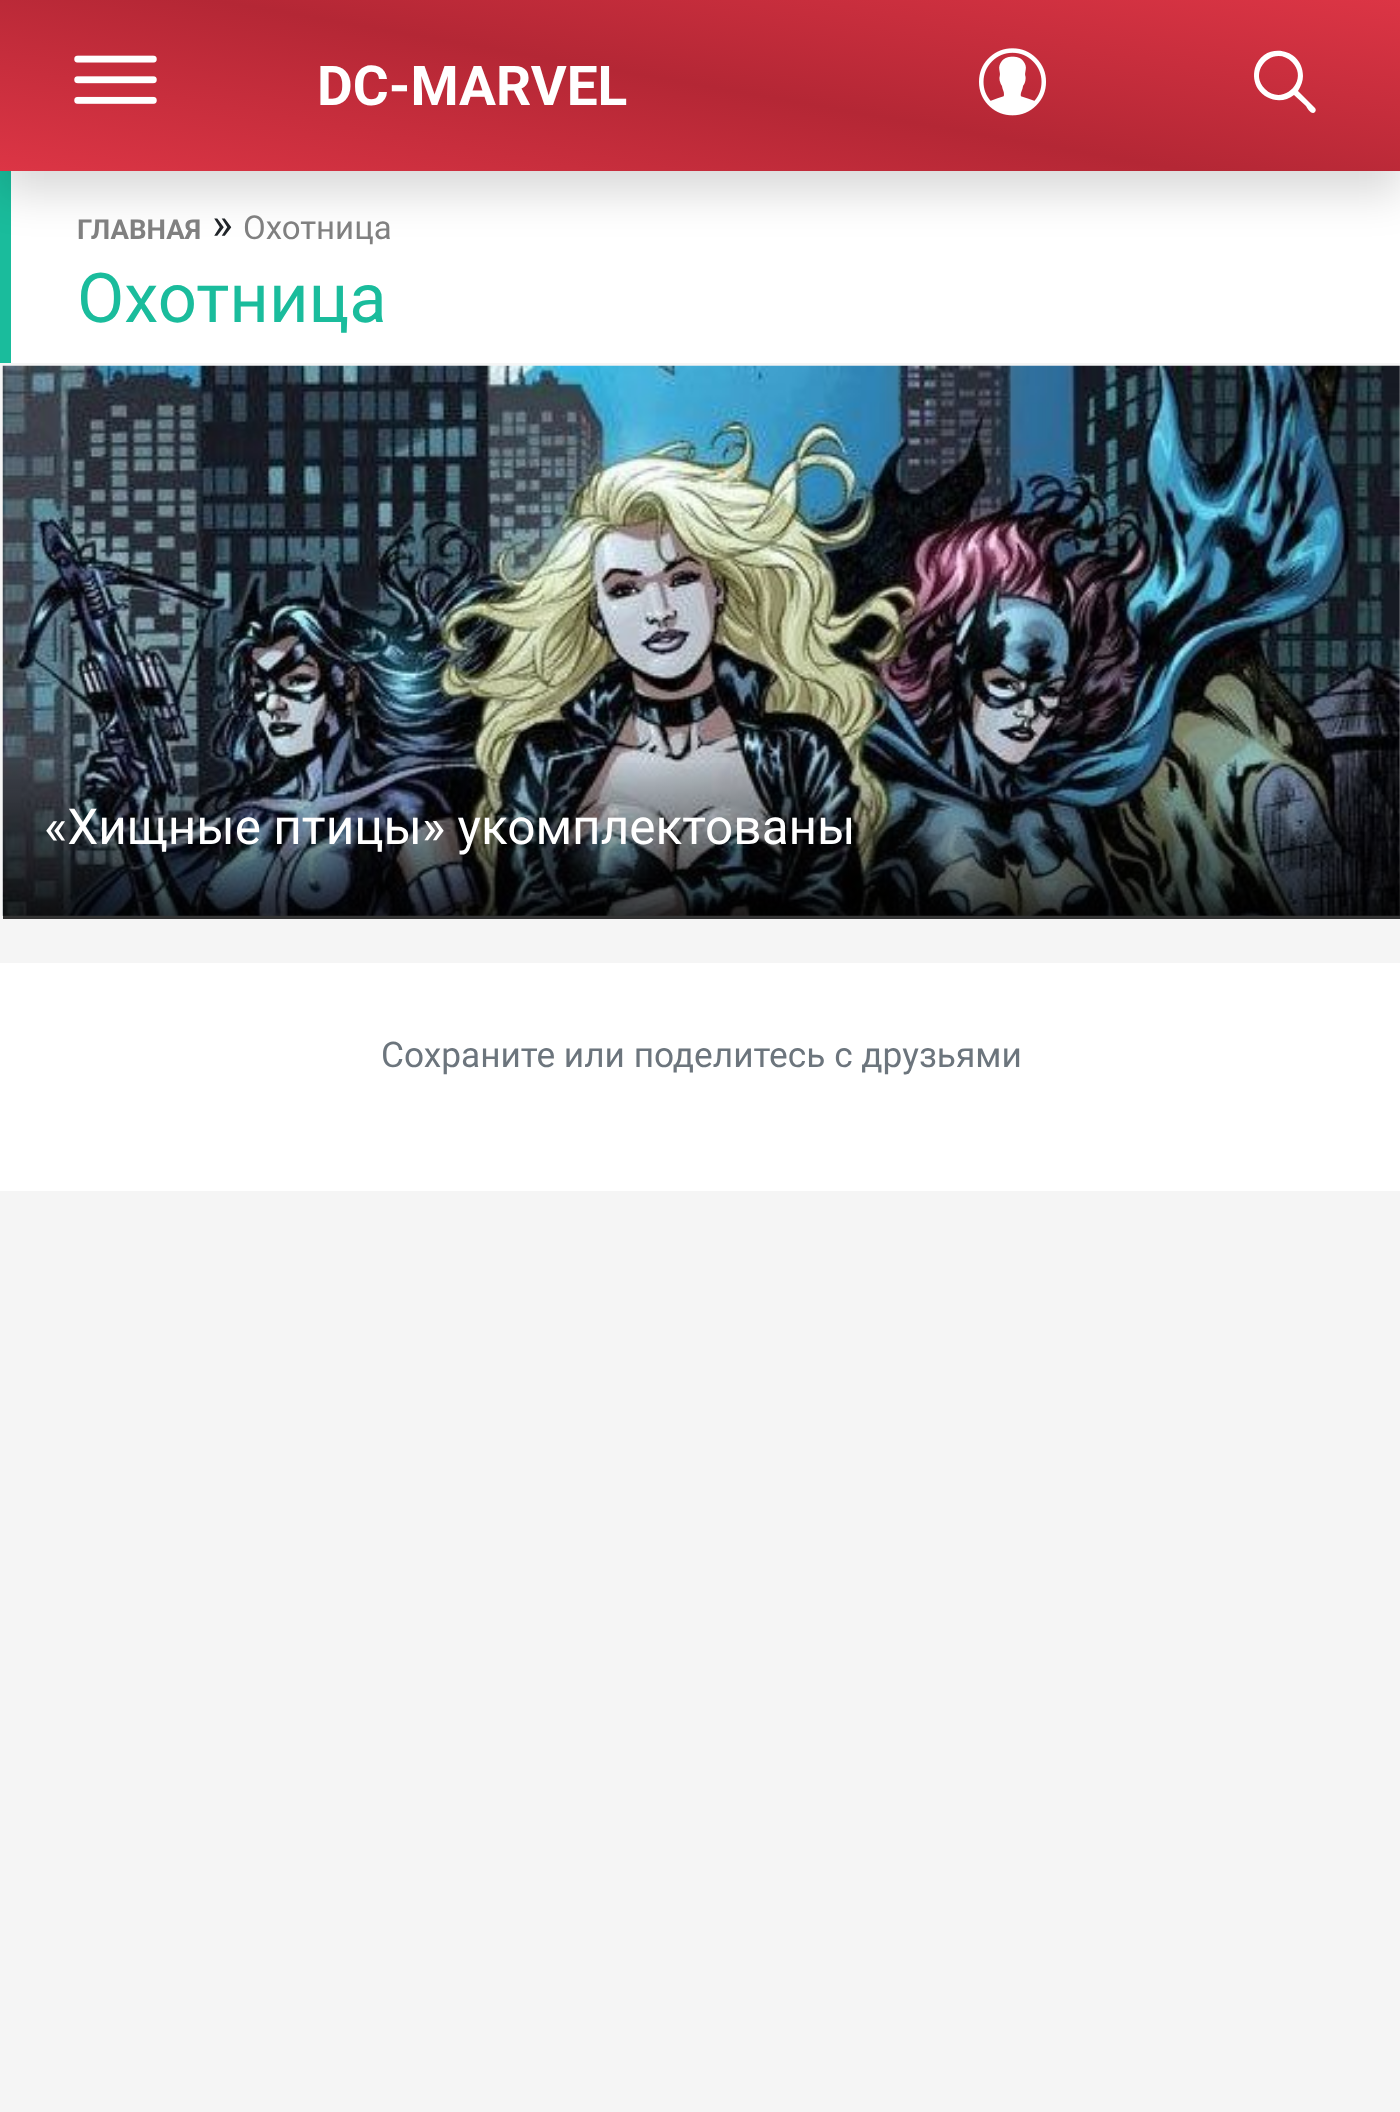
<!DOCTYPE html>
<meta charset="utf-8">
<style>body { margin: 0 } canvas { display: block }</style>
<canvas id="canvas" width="1400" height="2112"></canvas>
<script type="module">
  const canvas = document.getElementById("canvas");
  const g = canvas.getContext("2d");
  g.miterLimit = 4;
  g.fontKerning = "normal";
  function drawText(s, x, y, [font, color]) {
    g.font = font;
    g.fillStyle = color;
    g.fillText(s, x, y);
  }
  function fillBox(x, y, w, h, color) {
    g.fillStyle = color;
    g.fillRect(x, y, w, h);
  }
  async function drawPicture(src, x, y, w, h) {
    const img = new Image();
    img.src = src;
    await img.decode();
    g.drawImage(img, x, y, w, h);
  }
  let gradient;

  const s1 = ["bold 55px Roboto", "#FFFFFF"];
  const s2 = ["bold 27.5px Roboto", "#808080"];
  const s3 = ["44px Roboto", "#212529"];
  const s4 = ["33px Roboto", "#808080"];
  const s5 = ["68.75px Roboto", "#1ABC9C"];
  const s6 = ["49.5px Roboto", "#FFFFFF"];
  const s7 = ["35.25px Roboto", "#6C757D"];

  fillBox(0, 0, 1400, 2112, "#F5F5F5");
  fillBox(11, 171, 1389, 192, "#FFFFFF");
  fillBox(0, 171, 11, 192, "#1ABC9C");
  g.fillStyle = "rgba(0, 0, 0, 0.15)";
  g.filter = "blur(22px)";
  g.beginPath();
  g.rect(0, 22, 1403, 171);
  g.fill();
  g.filter = "none";
  gradient = g.createLinearGradient(666, 288, 737, -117);
  gradient.addColorStop(0, "#DC3545");
  gradient.addColorStop(0.5, "#B42735");
  gradient.addColorStop(1, "#DC3545");
  g.fillStyle = gradient;
  g.fillRect(0, 0, 1400, 171);
  await drawPicture("pic1.png", 74, 55, 83, 49);
  drawText("DC-MARVEL", 317, 105, s1);
  await drawPicture("pic2.png", 979, 48, 67, 68);
  g.beginPath();
  g.moveTo(1315, 108);
  g.bezierCurveTo(1316, 109, 1316, 111, 1315, 112);
  g.bezierCurveTo(1312, 116, 1307, 108, 1306, 106);
  g.lineTo(1294, 95);
  g.bezierCurveTo(1283, 104, 1266, 101, 1258, 89);
  g.bezierCurveTo(1254, 83, 1253, 75, 1255, 68);
  g.bezierCurveTo(1263, 41, 1303, 47, 1303, 76);
  g.bezierCurveTo(1303, 81, 1301, 86, 1298, 91);
  g.closePath();
  g.moveTo(1265, 89);
  g.bezierCurveTo(1283, 107, 1310, 80, 1292, 62);
  g.bezierCurveTo(1274, 44, 1247, 71, 1265, 89);
  g.closePath();
  g.fill();
  drawText("ГЛАВНАЯ", 77, 239, s2);
  drawText("»", 212, 239, s3);
  drawText("Охотница", 243, 239, s4);
  drawText("Охотница", 77, 322, s5);
  await drawPicture("pic3.png", 2, 365, 1398, 551);
  gradient = g.createLinearGradient(704, 919, 704, 759);
  gradient.addColorStop(0, "rgba(0, 0, 0, 0.8)");
  gradient.addColorStop(1, "rgba(0, 0, 0, 0)");
  g.fillStyle = gradient;
  g.fillRect(3, 763, 1397, 156);
  drawText("«Хищные птицы» укомплектованы", 44, 844, s6);
  fillBox(0, 963, 1400, 228, "#FFFFFF");
  drawText("Сохраните или поделитесь c друзьями", 381, 1067, s7);
</script>
